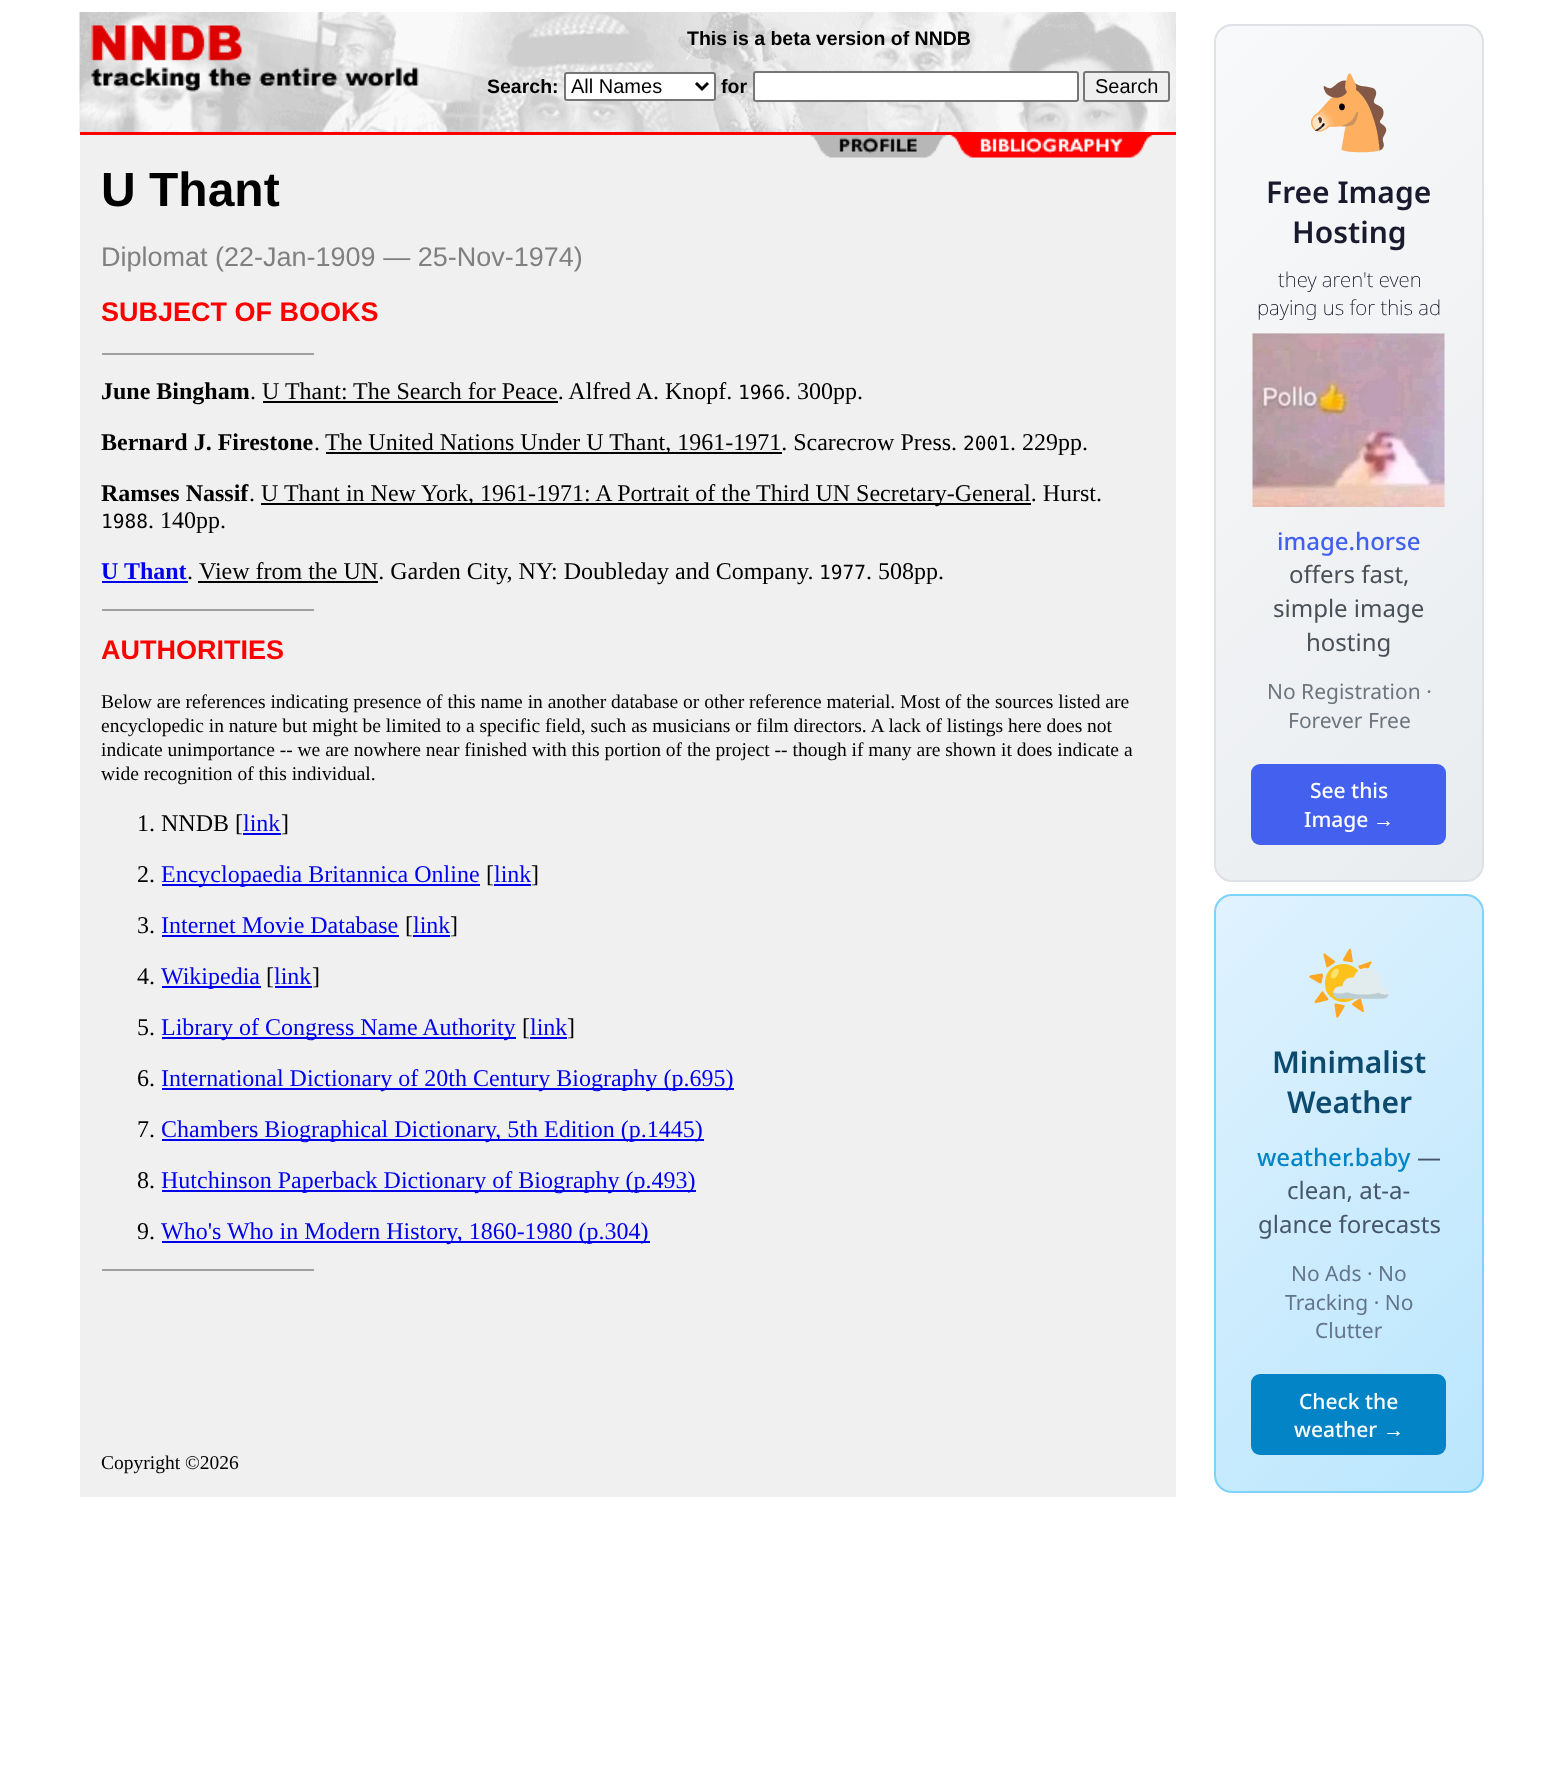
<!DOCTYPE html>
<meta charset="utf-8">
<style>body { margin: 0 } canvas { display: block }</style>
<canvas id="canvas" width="1562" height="1775"></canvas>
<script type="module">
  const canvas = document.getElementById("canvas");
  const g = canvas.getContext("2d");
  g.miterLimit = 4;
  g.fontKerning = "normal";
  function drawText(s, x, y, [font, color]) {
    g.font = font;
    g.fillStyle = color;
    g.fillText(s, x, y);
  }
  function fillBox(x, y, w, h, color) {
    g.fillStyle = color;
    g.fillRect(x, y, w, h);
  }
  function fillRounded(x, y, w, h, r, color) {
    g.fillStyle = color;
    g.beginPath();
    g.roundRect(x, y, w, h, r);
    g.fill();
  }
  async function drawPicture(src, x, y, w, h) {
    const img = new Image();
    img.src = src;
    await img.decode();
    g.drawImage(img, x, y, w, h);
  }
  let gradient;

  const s1 = ["bold 19.5px Liberation Sans", "#000000"];
  const s2 = ["20px Liberation Sans", "#000000"];
  const s3 = ["bold 48px Liberation Sans", "#000000"];
  const s4 = ["27px Liberation Sans", "#808080"];
  const s5 = ["bold 27px Liberation Sans", "#FF0000"];
  const s6 = ["bold 24px Liberation Serif", "#000000"];
  const s7 = ["24px Liberation Serif", "#000000"];
  const s8 = ["19.5px DejaVu Sans Mono", "#000000"];
  const s9 = ["bold 24px Liberation Serif", "#0000EE"];
  const s10 = ["19.5px Liberation Serif", "#000000"];
  const s11 = ["24px Liberation Serif", "#0000EE"];
  const s12 = ["72px Noto Color Emoji", "#0000EE"];
  const s13 = ["600 30px Noto Sans", "#1A1A2E"];
  const s14 = ["200 20.5px Noto Sans", "#0A0A1E"];
  const s15 = ["500 24px Noto Sans", "#4361EE"];
  const s16 = ["24px Noto Sans", "#495057"];
  const s17 = ["21px Noto Sans", "#6C757D"];
  const s18 = ["500 21px Noto Sans", "#FFFFFF"];
  const s19 = ["21px Liberation Sans", "#FFFFFF"];
  const s20 = ["600 30px Noto Sans", "#0C4A6E"];
  const s21 = ["500 24px Noto Sans", "#0284C7"];
  const s22 = ["24px Noto Sans", "#475569"];
  const s23 = ["21px Noto Sans", "#64748B"];

  fillBox(0, 0, 1562, 1775, "#FFFFFF");
  await drawPicture("pic1.png", 79, 12, 1097, 120);
  await drawPicture("pic2.png", 91, 25, 328, 67);
  drawText("This is a beta version of NNDB", 687, 45, s1);
  drawText("Search:", 487, 93, s1);
  g.fillStyle = "#FFFFFF";
  g.beginPath();
  g.roundRect(565, 73, 150, 27, 2);
  g.fill();
  g.strokeStyle = "#767676";
  g.lineWidth = 2;
  g.stroke();
  g.beginPath();
  g.moveTo(696, 83);
  g.lineTo(702, 89);
  g.lineTo(708, 83);
  g.strokeStyle = "#000000";
  g.lineWidth = 3;
  g.stroke();
  drawText("All Names", 571, 93, s2);
  drawText("for", 721, 93, s1);
  g.fillStyle = "#FFFFFF";
  g.beginPath();
  g.roundRect(754, 72, 324, 29, 2);
  g.fill();
  g.strokeStyle = "#767676";
  g.lineWidth = 2;
  g.stroke();
  g.fillStyle = "#EFEFEF";
  g.beginPath();
  g.roundRect(1084, 72, 85, 29, 2);
  g.fill();
  g.stroke();
  drawText("Search", 1095, 93, s2);
  fillBox(80, 132, 1096, 3, "#FF0000");
  fillBox(80, 135, 1096, 1362, "#F0F0F0");
  await drawPicture("pic3.png", 810, 135, 343, 23);
  drawText("U Thant", 101, 206, s3);
  drawText("Diplomat (22-Jan-1909 — 25-Nov-1974)", 101, 266, s4);
  drawText("SUBJECT OF BOOKS", 101, 321, s5);
  fillBox(102, 353, 213, 2, "#9F9F9F");
  fillBox(314, 353, 2, 2, "#EEEEEE");
  drawText("June Bingham", 101, 399, s6);
  drawText(". U Thant: The Search for Peace. Alfred A. Knopf.", 250, 399, s7);
  drawText("1966", 738, 399, s8);
  drawText(". 300pp.", 785, 399, s7);
  fillBox(263, 401, 295, 2, "#000000");
  drawText("Bernard J. Firestone", 101, 450, s6);
  drawText(".", 314, 450, s7);
  fillBox(326, 452, 456, 2, "#000000");
  drawText("The United Nations Under U Thant, 1961-1971. Scarecrow Press.", 325, 450, s7);
  drawText("2001", 963, 450, s8);
  drawText(". 229pp.", 1010, 450, s7);
  drawText("Ramses Nassif", 101, 501, s6);
  drawText(".", 249, 501, s7);
  fillBox(261, 503, 770, 2, "#000000");
  drawText("U Thant in New York, 1961-1971: A Portrait of the Third UN Secretary-General. Hurst.", 261, 501, s7);
  drawText("1988", 101, 528, s8);
  drawText(". 140pp.", 148, 528, s7);
  drawText("U Thant", 101, 579, s9);
  fillBox(102, 581, 86, 2, "#0000EE");
  drawText(".", 187, 579, s7);
  fillBox(198, 581, 180, 2, "#000000");
  drawText("View from the UN. Garden City, NY: Doubleday and Company.", 199, 579, s7);
  drawText("1977", 819, 579, s8);
  drawText(". 508pp.", 866, 579, s7);
  fillBox(102, 609, 213, 2, "#9F9F9F");
  fillBox(314, 609, 2, 2, "#EEEEEE");
  drawText("AUTHORITIES", 101, 659, s5);
  drawText("Below are references indicating presence of this name in another database or other reference material. Most of the sources listed are", 101, 708, s10);
  drawText("encyclopedic in nature but might be limited to a specific field, such as musicians or film directors. A lack of listings here does not", 101, 732, s10);
  drawText("indicate unimportance -- we are nowhere near finished with this portion of the project -- though if many are shown it does indicate a", 101, 756, s10);
  drawText("wide recognition of this individual.", 101, 780, s10);
  drawText("1. NNDB [", 137, 831, s7);
  drawText("link", 243, 831, s11);
  fillBox(243, 833, 38, 2, "#0000EE");
  drawText("]", 281, 831, s7);
  drawText("2.", 137, 882, s7);
  fillBox(162, 884, 318, 2, "#0000EE");
  drawText("Encyclopaedia Britannica Online", 161, 882, s11);
  drawText("[", 486, 882, s7);
  drawText("link", 494, 882, s11);
  fillBox(494, 884, 37, 2, "#0000EE");
  drawText("]", 531, 882, s7);
  drawText("3.", 137, 933, s7);
  drawText("Internet Movie Database", 161, 933, s11);
  fillBox(162, 935, 237, 2, "#0000EE");
  drawText("[", 405, 933, s7);
  drawText("link", 413, 933, s11);
  fillBox(413, 935, 37, 2, "#0000EE");
  drawText("]", 450, 933, s7);
  drawText("4.", 137, 984, s7);
  fillBox(162, 986, 99, 2, "#0000EE");
  drawText("Wikipedia", 161, 984, s11);
  drawText("[", 266, 984, s7);
  drawText("link", 274, 984, s11);
  fillBox(275, 986, 37, 2, "#0000EE");
  drawText("]", 312, 984, s7);
  drawText("5.", 137, 1035, s7);
  fillBox(162, 1037, 354, 2, "#0000EE");
  drawText("Library of Congress Name Authority", 161, 1035, s11);
  drawText("[", 522, 1035, s7);
  drawText("link", 530, 1035, s11);
  fillBox(530, 1037, 37, 2, "#0000EE");
  drawText("]", 567, 1035, s7);
  drawText("6.", 137, 1086, s7);
  fillBox(162, 1088, 572, 2, "#0000EE");
  drawText("International Dictionary of 20th Century Biography (p.695)", 161, 1086, s11);
  drawText("7.", 137, 1137, s7);
  fillBox(162, 1139, 542, 2, "#0000EE");
  drawText("Chambers Biographical Dictionary, 5th Edition (p.1445)", 161, 1137, s11);
  drawText("8.", 137, 1188, s7);
  fillBox(162, 1190, 534, 2, "#0000EE");
  drawText("Hutchinson Paperback Dictionary of Biography (p.493)", 161, 1188, s11);
  drawText("9.", 137, 1239, s7);
  fillBox(162, 1241, 488, 2, "#0000EE");
  drawText("Who's Who in Modern History, 1860-1980 (p.304)", 161, 1239, s11);
  fillBox(102, 1269, 213, 2, "#9F9F9F");
  fillBox(314, 1269, 2, 2, "#EEEEEE");
  drawText("Copyright ©2026", 101, 1469, s10);
  g.save();
  g.beginPath();
  g.roundRect(1214, 24, 270, 858, 18);
  g.clip();
  gradient = g.createLinearGradient(1068, 173, 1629, 734);
  gradient.addColorStop(0, "#F8F9FA");
  gradient.addColorStop(1, "#E9ECEF");
  g.fillStyle = gradient;
  g.fillRect(1215, 26, 267, 855);
  g.restore();
  g.beginPath();
  g.roundRect(1215, 25, 268, 856, 17);
  g.strokeStyle = "#DEE2E6";
  g.stroke();
  drawText("🐴", 1304, 138, s12);
  drawText("Free Image", 1266, 203, s13);
  drawText("Hosting", 1292, 243, s13);
  drawText("they aren't even", 1278, 287, s14);
  drawText("paying us for this ad", 1257, 315, s14);
  await drawPicture("pic4.png", 1252, 333, 193, 174);
  drawText("image.horse", 1277, 550, s15);
  drawText("offers fast,", 1289, 583, s16);
  drawText("simple image", 1273, 617, s16);
  drawText("hosting", 1306, 651, s16);
  drawText("No Registration ·", 1267, 699, s17);
  drawText("Forever Free", 1288, 728, s17);
  fillRounded(1251, 764, 195, 81, 9, "#4361EE");
  drawText("See this", 1310, 798, s18);
  drawText("Image", 1304, 827, s18);
  drawText("→", 1373, 827, s19);
  g.save();
  g.beginPath();
  g.roundRect(1214, 894, 270, 599, 18);
  g.clip();
  gradient = g.createLinearGradient(1133, 978, 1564, 1409);
  gradient.addColorStop(0, "#E0F2FE");
  gradient.addColorStop(1, "#BAE6FD");
  g.fillStyle = gradient;
  g.fillRect(1215, 896, 267, 595);
  g.restore();
  g.beginPath();
  g.roundRect(1215, 895, 268, 597, 17);
  g.strokeStyle = "#7DD3FC";
  g.stroke();
  drawText("🌤️", 1304, 1008, s12);
  drawText("Minimalist", 1272, 1073, s20);
  drawText("Weather", 1287, 1113, s20);
  drawText("weather.baby", 1257, 1166, s21);
  drawText("—", 1417, 1166, s22);
  drawText("clean, at-a-", 1287, 1199, s22);
  drawText("glance forecasts", 1258, 1233, s22);
  drawText("No Ads · No", 1291, 1281, s23);
  drawText("Tracking · No", 1285, 1310, s23);
  drawText("Clutter", 1315, 1338, s23);
  fillRounded(1251, 1374, 195, 81, 9, "#0284C7");
  drawText("Check the", 1299, 1409, s18);
  drawText("weather", 1294, 1437, s18);
  drawText("→", 1383, 1437, s19);
</script>
